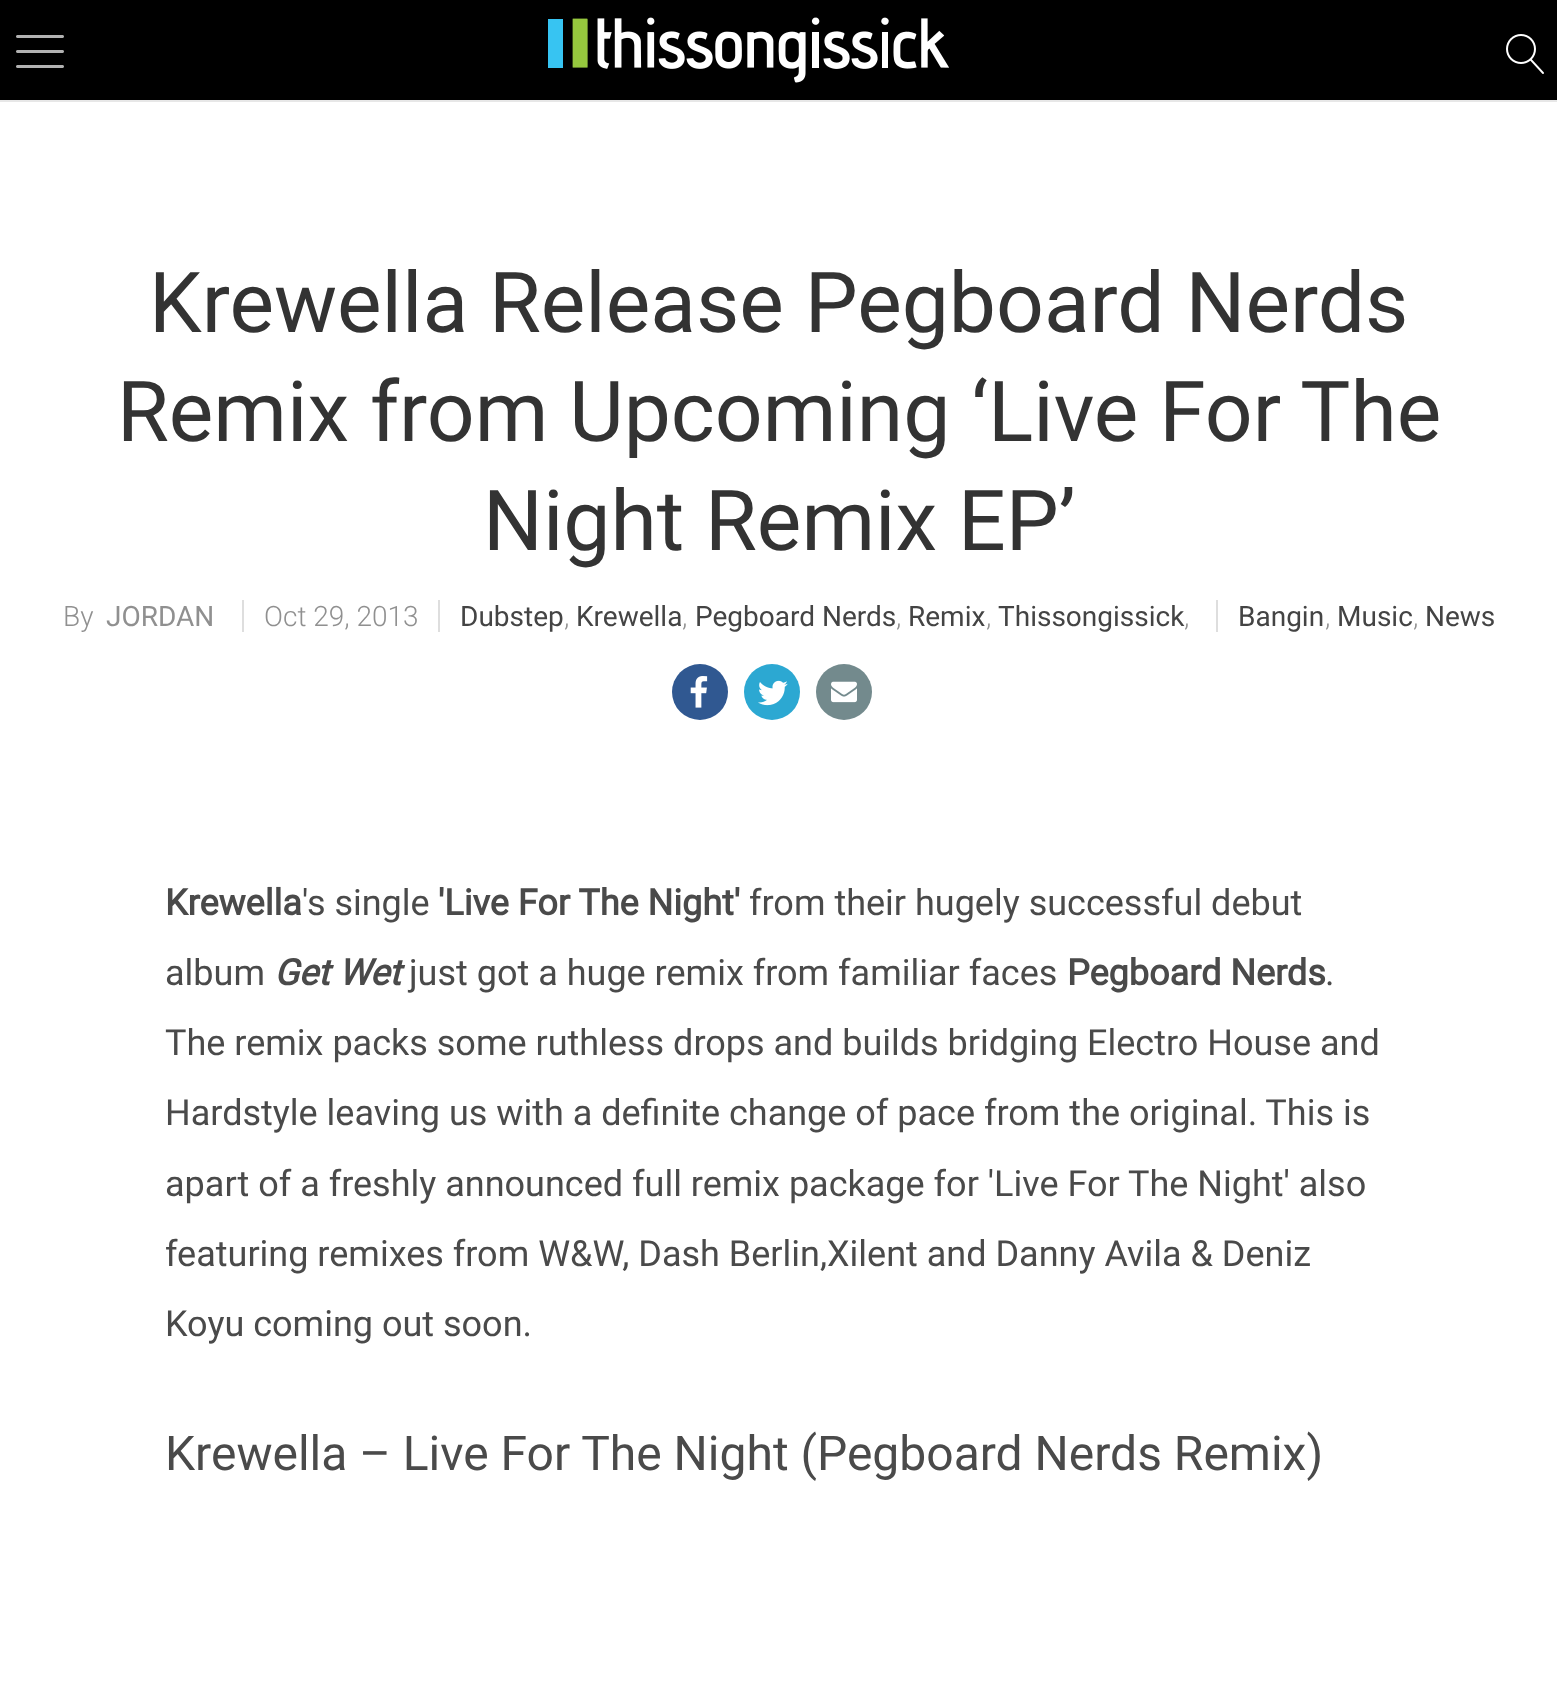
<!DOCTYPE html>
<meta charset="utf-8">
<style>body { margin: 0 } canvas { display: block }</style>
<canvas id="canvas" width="1557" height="1704"></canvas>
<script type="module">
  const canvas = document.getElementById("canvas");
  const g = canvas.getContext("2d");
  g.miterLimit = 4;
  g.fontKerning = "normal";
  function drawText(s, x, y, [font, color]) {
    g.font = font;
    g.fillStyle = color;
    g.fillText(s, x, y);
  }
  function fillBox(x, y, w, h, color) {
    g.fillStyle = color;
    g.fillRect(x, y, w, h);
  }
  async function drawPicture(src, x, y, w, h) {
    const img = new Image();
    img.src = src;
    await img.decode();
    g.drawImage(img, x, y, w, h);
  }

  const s1 = ["84px Roboto", "#333333"];
  const s2 = ["300 28px Roboto", "#909090"];
  const s3 = ["28px Roboto", "#909090"];
  const s4 = ["28px Roboto", "#444444"];
  const s5 = ["bold 36px Roboto", "#4A4A4A"];
  const s6 = ["36px Roboto", "#4A4A4A"];
  const s7 = ["italic bold 36px Roboto", "#4A4A4A"];
  const s8 = ["48px Roboto", "#4A4A4A"];

  fillBox(0, 0, 1557, 1704, "#FFFFFF");
  fillBox(0, 0, 1557, 100, "#000000");
  fillBox(0, 100, 1557, 2, "#E7E7E7");
  await drawPicture("pic1.png", 16, 35, 48, 33);
  await drawPicture("pic2.png", 548, 17, 401, 66);
  await drawPicture("pic3.png", 1506, 34, 38, 40);
  drawText("Krewella Release Pegboard Nerds", 149, 332, s1);
  drawText("Remix from Upcoming ‘Live For The", 117, 441, s1);
  drawText("Night Remix EP’", 483, 550, s1);
  drawText("By", 63, 626, s2);
  drawText("JORDAN", 106, 626, s3);
  fillBox(242, 600, 2, 32, "#DEDEDE");
  drawText("Oct 29, 2013", 264, 626, s2);
  fillBox(438, 600, 2, 32, "#DEDEDE");
  drawText("Dubstep", 460, 626, s4);
  drawText(",", 564, 626, s2);
  drawText("Krewella", 576, 626, s4);
  drawText(",", 682, 626, s2);
  drawText("Pegboard Nerds", 695, 626, s4);
  drawText(",", 896, 626, s2);
  drawText("Remix", 908, 626, s4);
  drawText(",", 986, 626, s2);
  drawText("Thissongissick", 998, 626, s4);
  drawText(",", 1184, 626, s2);
  fillBox(1216, 600, 2, 32, "#DEDEDE");
  drawText("Bangin", 1238, 626, s4);
  drawText(",", 1325, 626, s2);
  drawText("Music", 1337, 626, s4);
  drawText(",", 1413, 626, s2);
  drawText("News", 1425, 626, s4);
  g.fillStyle = "#305891";
  g.beginPath();
  g.arc(700, 692, 28, 0, Math.PI * 2);
  g.fill();
  await drawPicture("pic4.png", 690, 676, 18, 32);
  g.fillStyle = "#2CA8D2";
  g.beginPath();
  g.arc(772, 692, 28, 0, Math.PI * 2);
  g.fill();
  await drawPicture("pic5.png", 758, 680, 30, 26);
  g.fillStyle = "#738A8D";
  g.beginPath();
  g.arc(844, 692, 28, 0, Math.PI * 2);
  g.fill();
  await drawPicture("pic6.png", 831, 681, 26, 22);
  drawText("Krewella", 165, 915, s5);
  drawText("'s single", 302, 915, s6);
  drawText("'Live For The Night'", 438, 915, s5);
  drawText("from their hugely successful debut", 749, 915, s6);
  drawText("album", 165, 985, s6);
  drawText("Get Wet", 274, 985, s7);
  drawText("just got a huge remix from familiar faces", 409, 985, s6);
  drawText("Pegboard Nerds", 1067, 985, s5);
  drawText(".", 1325, 985, s6);
  drawText("The remix packs some ruthless drops and builds bridging Electro House and", 165, 1055, s6);
  drawText("Hardstyle leaving us with a definite change of pace from the original. This is", 165, 1125, s6);
  drawText("apart of a freshly announced full remix package for 'Live For The Night' also", 165, 1196, s6);
  drawText("featuring remixes from W&W, Dash Berlin,Xilent and Danny Avila & Deniz", 165, 1266, s6);
  drawText("Koyu coming out soon.", 165, 1336, s6);
  drawText("Krewella – Live For The Night (Pegboard Nerds Remix)", 165, 1470, s8);
</script>
